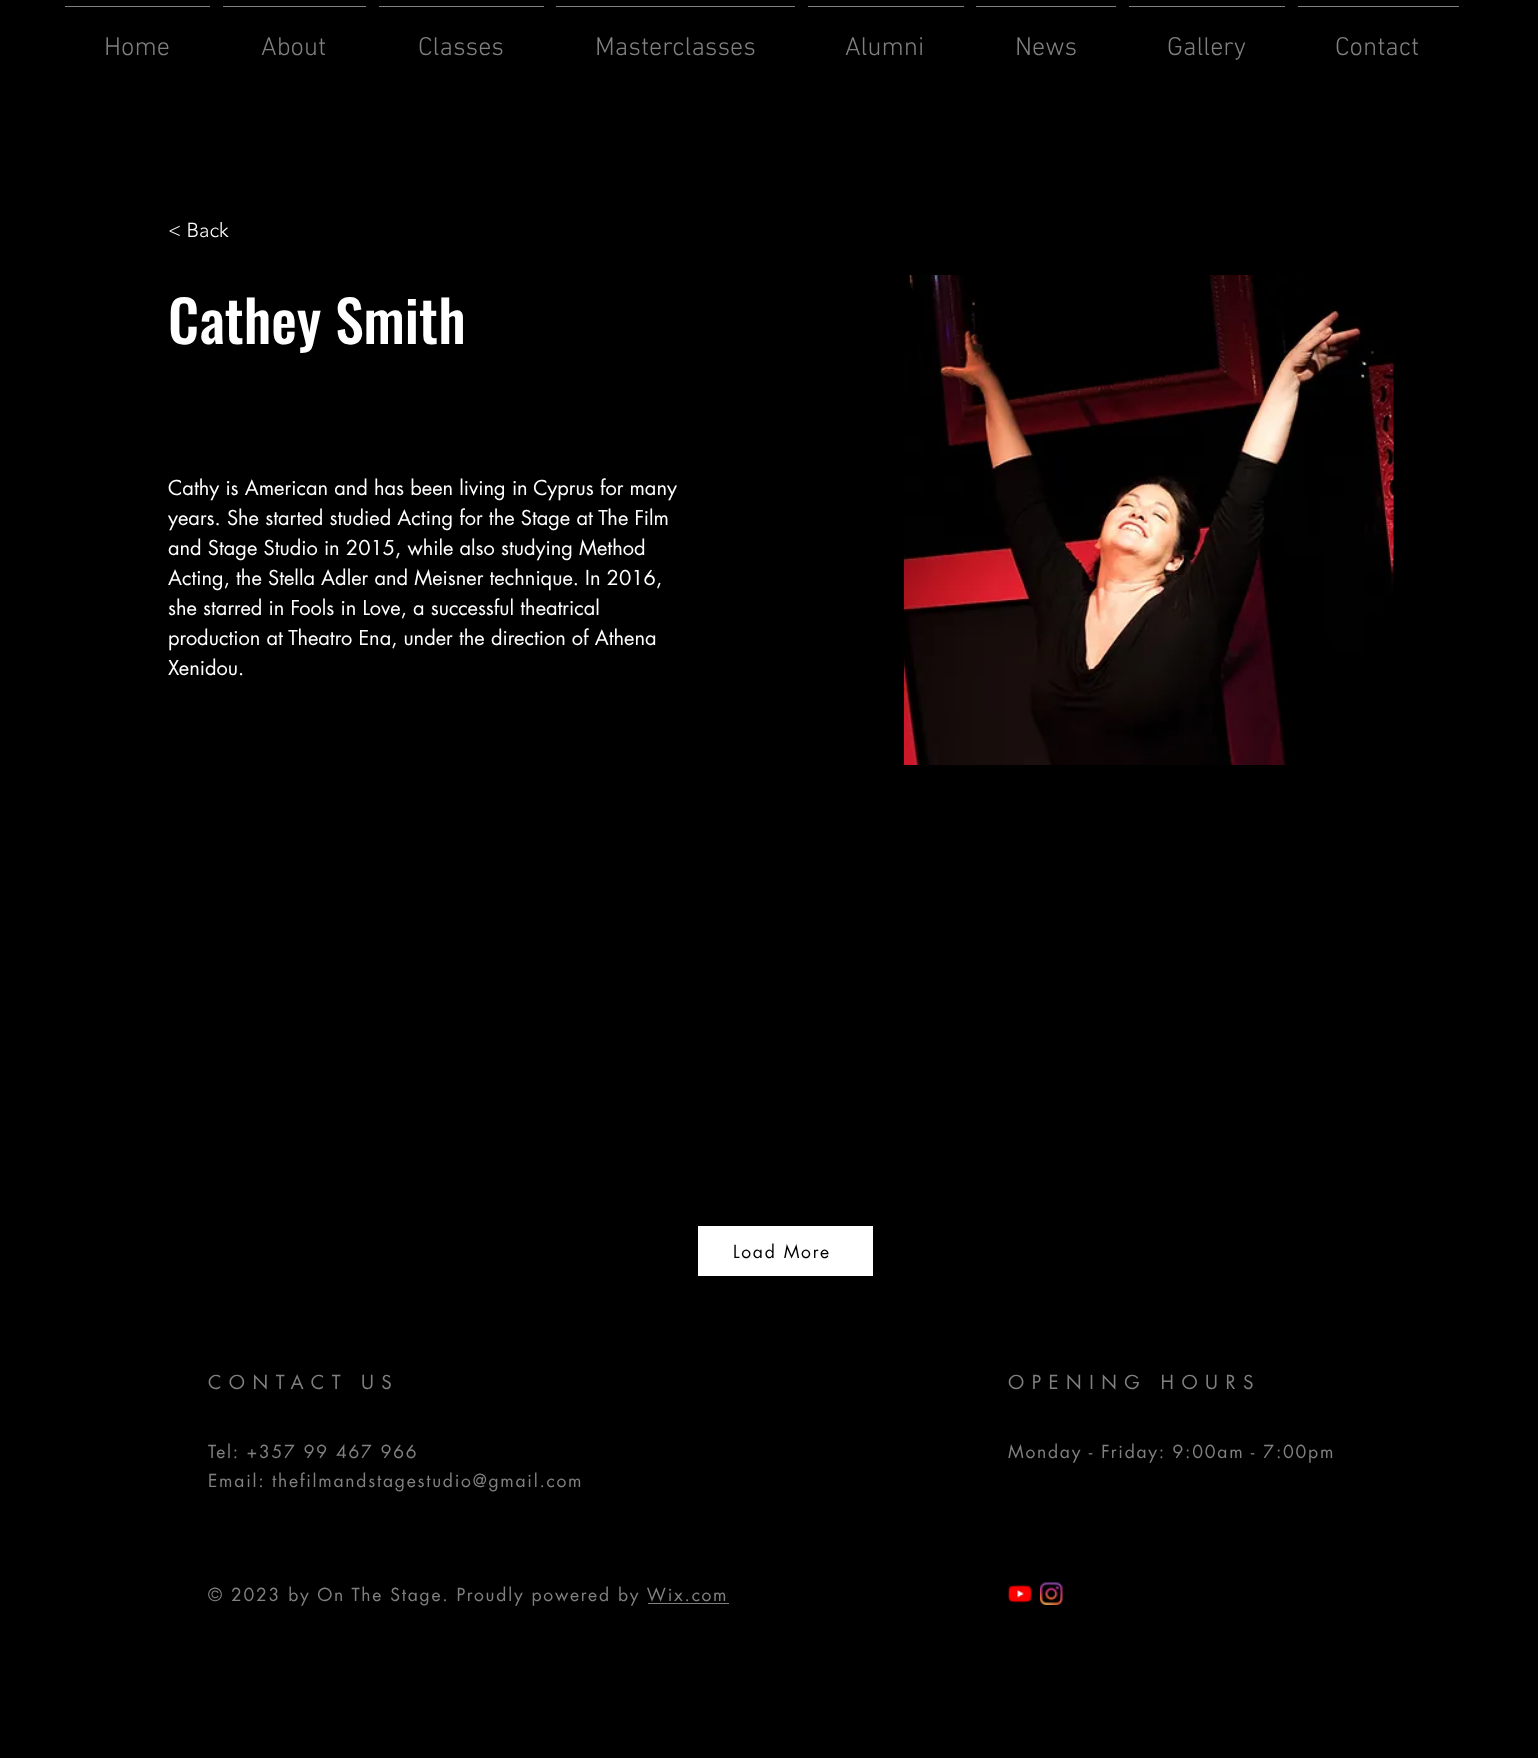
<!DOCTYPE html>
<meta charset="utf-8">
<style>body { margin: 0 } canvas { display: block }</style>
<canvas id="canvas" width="1538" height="1758"></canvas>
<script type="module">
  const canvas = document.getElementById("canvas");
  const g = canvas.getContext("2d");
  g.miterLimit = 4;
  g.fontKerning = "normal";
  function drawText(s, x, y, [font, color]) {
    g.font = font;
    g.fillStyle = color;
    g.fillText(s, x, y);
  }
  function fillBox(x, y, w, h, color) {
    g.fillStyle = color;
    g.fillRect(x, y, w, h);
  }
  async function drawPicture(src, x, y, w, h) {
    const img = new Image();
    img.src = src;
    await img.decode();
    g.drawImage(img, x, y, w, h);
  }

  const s1 = ["300 26.25px 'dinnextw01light'", "#808080"];
  const s2 = ["300 20px 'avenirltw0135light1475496'", "#FFFFFF"];
  const s3 = ["500 57.5px Oswald", "#FFFFFF"];
  const s4 = ["20px futura", "#FFFFFF"];
  const s5 = ["17.5px futura", "#000000"];
  const s6 = ["18.75px futura", "#808080"];
  const s7 = ["17.5px futura", "#808080"];

  fillBox(0, 0, 1538, 1758, "#000000");
  fillBox(65, 6, 145, 1, "#808080");
  drawText("Home", 104, 55, s1);
  fillBox(223, 6, 143, 1, "#808080");
  drawText("About", 261, 55, s1);
  fillBox(379, 6, 165, 1, "#808080");
  drawText("Classes", 418, 55, s1);
  fillBox(556, 6, 239, 1, "#808080");
  drawText("Masterclasses", 595, 55, s1);
  fillBox(808, 6, 156, 1, "#808080");
  drawText("Alumni", 845, 55, s1);
  fillBox(976, 6, 140, 1, "#808080");
  drawText("News", 1015, 55, s1);
  fillBox(1129, 6, 156, 1, "#808080");
  drawText("Gallery", 1167, 55, s1);
  fillBox(1298, 6, 161, 1, "#808080");
  drawText("Contact", 1335, 55, s1);
  drawText("< Back", 168, 237, s2);
  drawText("Cathey Smith", 168, 344, s3);
  drawText("Cathy is American and has been living in Cyprus for many", 168, 495, s4);
  drawText("years. She started studied Acting for the Stage at The Film", 168, 525, s4);
  drawText("and Stage Studio in 2015, while also studying Method", 168, 555, s4);
  drawText("Acting, the Stella Adler and Meisner technique. In 2016,", 168, 585, s4);
  drawText("she starred in Fools in Love, a successful theatrical", 168, 615, s4);
  drawText("production at Theatro Ena, under the direction of Athena", 168, 645, s4);
  drawText("Xenidou.", 168, 675, s4);
  await drawPicture("pic1.png", 903, 275, 491, 490);
  fillBox(698, 1226, 175, 50, "#FFFFFF");
  g.letterSpacing = "1.75px";
  drawText("Load More", 733, 1258, s5);
  g.letterSpacing = "7.5px";
  drawText("CONTACT US", 208, 1389, s6);
  drawText("OPENING HOURS", 1008, 1389, s6);
  g.letterSpacing = "1.75px";
  drawText("Tel: +357 99 467 966", 208, 1458, s7);
  drawText("Email: thefilmandstagestudio@gmail.com", 208, 1487, s7);
  drawText("Monday - Friday: 9:00am - 7:00pm", 1008, 1458, s7);
  drawText("© 2023 by On The Stage. Proudly powered by Wix.com", 208, 1601, s7);
  fillBox(648, 1603, 81, 1, "#808080");
  await drawPicture("pic2.png", 1008, 1585, 24, 18);
  await drawPicture("pic3.png", 1040, 1582, 23, 23);
</script>
